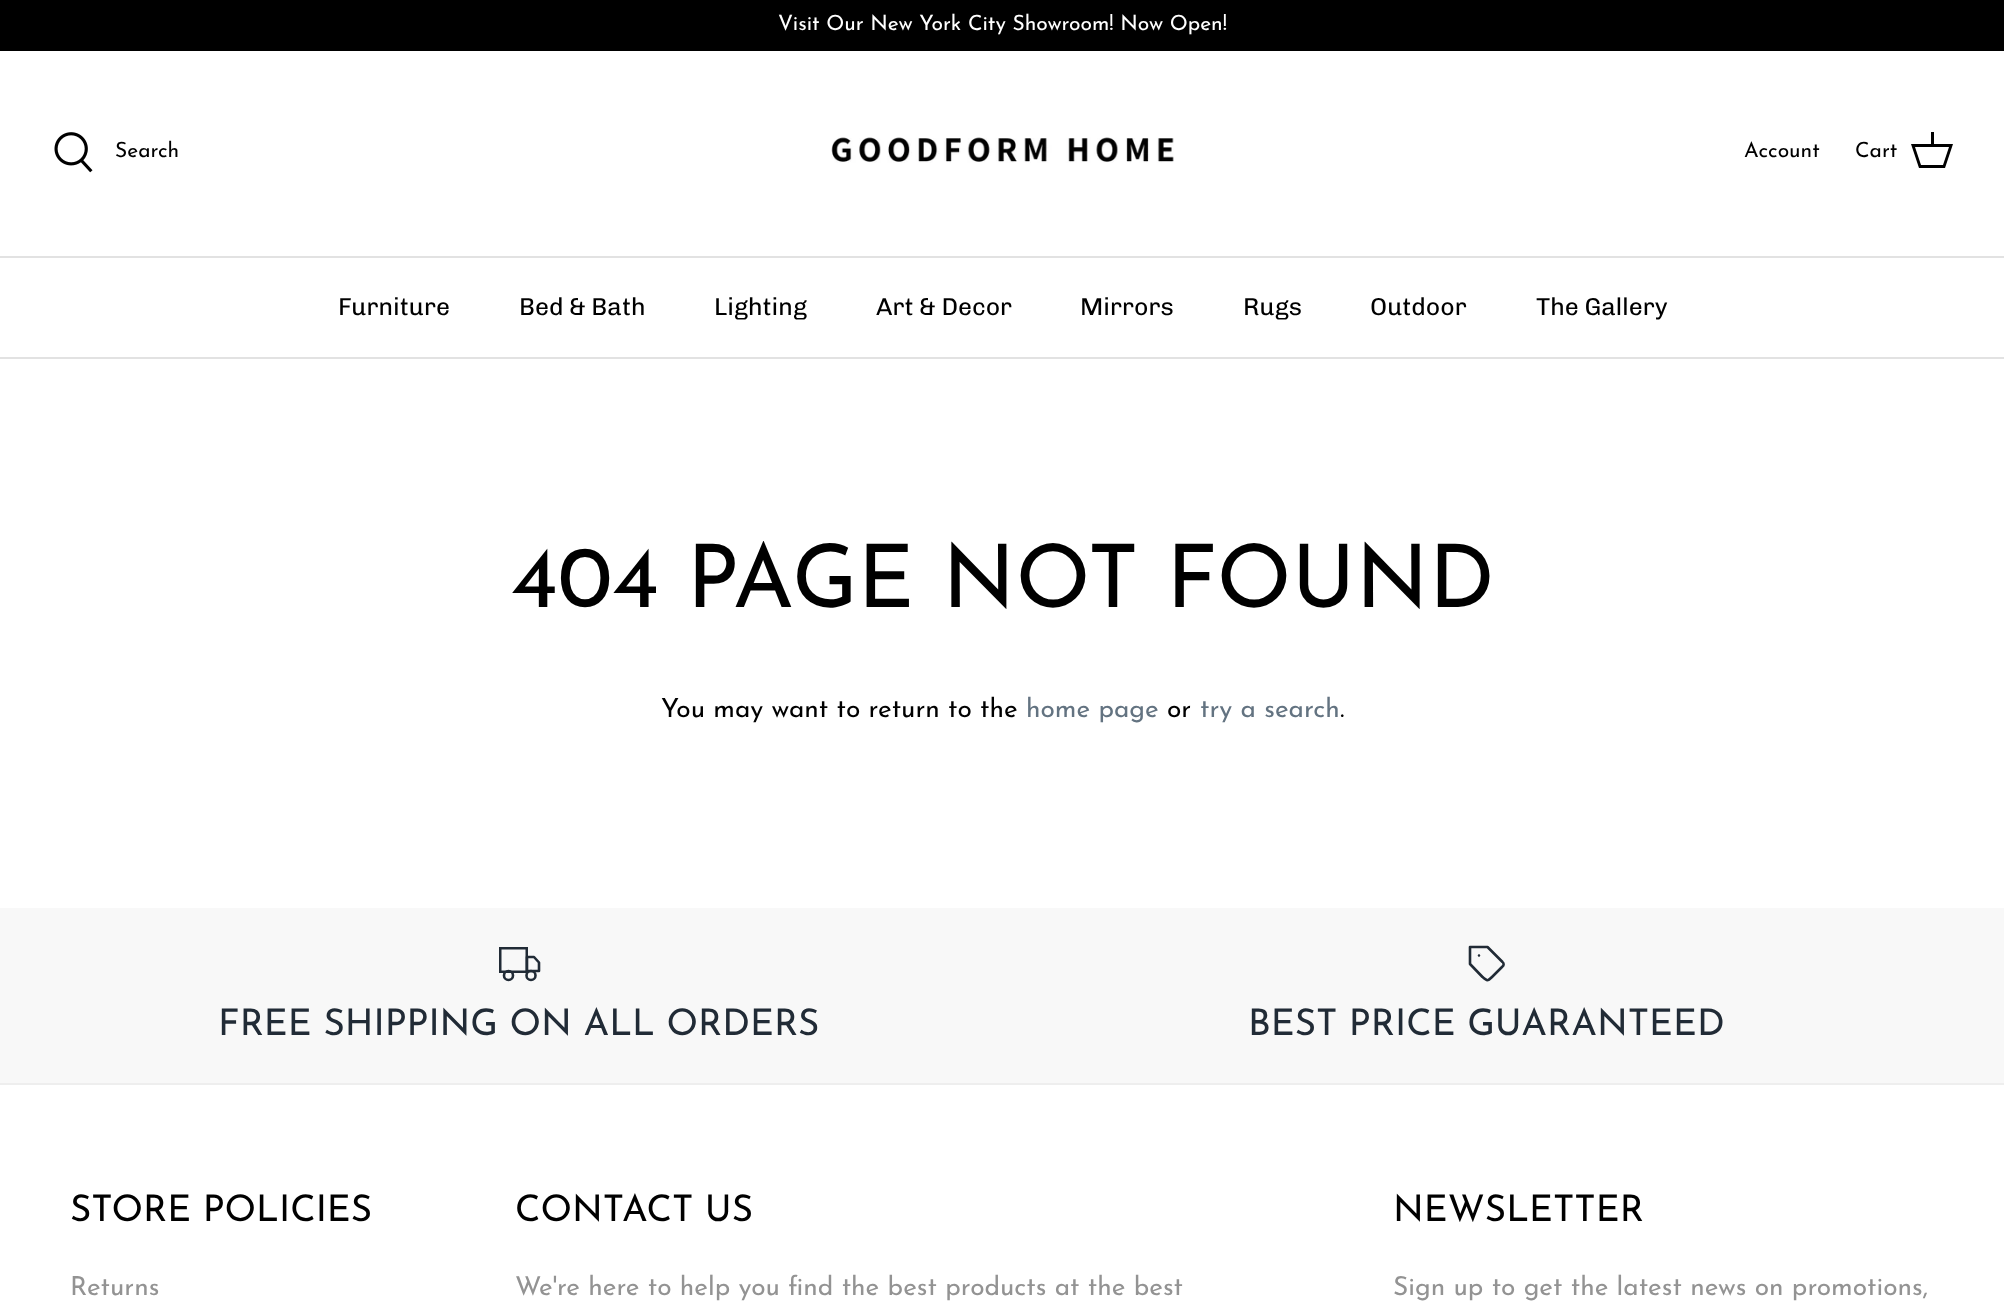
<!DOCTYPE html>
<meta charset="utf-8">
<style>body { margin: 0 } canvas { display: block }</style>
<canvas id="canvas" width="2004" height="1306"></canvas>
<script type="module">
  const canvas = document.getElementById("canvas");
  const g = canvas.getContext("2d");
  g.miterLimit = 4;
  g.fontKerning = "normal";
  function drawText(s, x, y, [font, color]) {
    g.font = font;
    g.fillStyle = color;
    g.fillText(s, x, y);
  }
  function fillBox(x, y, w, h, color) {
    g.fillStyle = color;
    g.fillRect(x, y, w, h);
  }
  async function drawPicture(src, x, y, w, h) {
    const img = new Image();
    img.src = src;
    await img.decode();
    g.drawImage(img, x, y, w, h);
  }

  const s1 = ["21px Josefin Sans", "#FFFFFF"];
  const s2 = ["21px Josefin Sans", "#000000"];
  const s3 = ["24.5px Chivo", "#000000"];
  const s4 = ["87.5px Josefin Sans", "#000000"];
  const s5 = ["26.25px Josefin Sans", "#000000"];
  const s6 = ["26.25px Josefin Sans", "#637381"];
  const s7 = ["36.75px Josefin Sans", "#212B36"];
  const s8 = ["36.75px Josefin Sans", "#000000"];
  const s9 = ["26.25px Josefin Sans", "#939393"];

  fillBox(0, 0, 2004, 1306, "#FFFFFF");
  fillBox(0, 0, 2004, 51, "#000000");
  drawText("Visit Our New York City Showroom! Now Open!", 778, 30, s1);
  fillBox(0, 256, 2004, 2, "#E2E2E2");
  await drawPicture("pic1.png", 54, 132, 39, 41);
  drawText("Search", 115, 157, s2);
  await drawPicture("pic2.png", 831, 137, 343, 26);
  drawText("Account", 1744, 157, s2);
  drawText("Cart", 1855, 157, s2);
  g.beginPath();
  g.moveTo(1931, 144);
  g.lineTo(1931, 132);
  g.lineTo(1934, 132);
  g.lineTo(1934, 144);
  g.lineTo(1953, 144);
  g.lineTo(1945, 168);
  g.lineTo(1919, 168);
  g.lineTo(1911, 144);
  g.closePath();
  g.moveTo(1915, 147);
  g.lineTo(1921, 165);
  g.lineTo(1943, 165);
  g.lineTo(1949, 147);
  g.closePath();
  g.fill();
  fillBox(0, 357, 2004, 2, "#E2E2E2");
  drawText("Furniture", 338, 315, s3);
  drawText("Bed & Bath", 519, 315, s3);
  drawText("Lighting", 714, 315, s3);
  drawText("Art & Decor", 876, 315, s3);
  drawText("Mirrors", 1080, 315, s3);
  drawText("Rugs", 1243, 315, s3);
  drawText("Outdoor", 1370, 315, s3);
  drawText("The Gallery", 1536, 315, s3);
  drawText("404 PAGE NOT FOUND", 511, 607, s4);
  drawText("You may want to return to the", 661, 717, s5);
  drawText("home page", 1026, 717, s6);
  drawText("or", 1167, 717, s5);
  drawText("try a search", 1200, 717, s6);
  drawText(".", 1340, 717, s5);
  fillBox(0, 908, 2004, 175, "#F8F8F8");
  g.strokeStyle = "#212B36";
  g.lineWidth = 2.5;
  g.strokeRect(500.25, 948.25, 26.5, 23.5);
  g.beginPath();
  g.moveTo(527, 957);
  g.lineTo(534, 957);
  g.lineTo(539, 962.5);
  g.lineTo(539, 971);
  g.lineTo(527, 971);
  g.closePath();
  g.lineWidth = 2.6;
  g.lineCap = "round";
  g.lineJoin = "round";
  g.stroke();
  g.beginPath();
  g.arc(508.5, 975.5, 4.5, 0, Math.PI * 2);
  g.stroke();
  g.beginPath();
  g.arc(531, 975.5, 4.5, 0, Math.PI * 2);
  g.stroke();
  drawText("FREE SHIPPING ON ALL ORDERS", 218, 1035, s7);
  g.beginPath();
  g.moveTo(1502.5, 966.5);
  g.lineTo(1492, 977);
  g.bezierCurveTo(1487.5, 981.5, 1487, 981, 1482.5, 977);
  g.lineTo(1470, 964);
  g.lineTo(1470, 947);
  g.lineTo(1487.5, 947);
  g.lineTo(1502.5, 962);
  g.bezierCurveTo(1504, 963, 1504, 965.5, 1502.5, 966.5);
  g.closePath();
  g.moveTo(1479, 955.5);
  g.lineTo(1479, 955.5);
  g.stroke();
  drawText("BEST PRICE GUARANTEED", 1248, 1035, s7);
  fillBox(0, 1083, 2004, 2, "#EEEEEE");
  drawText("STORE POLICIES", 70, 1221, s8);
  drawText("Returns", 70, 1295, s9);
  drawText("CONTACT US", 515, 1221, s8);
  drawText("We're here to help you find the best products at the best", 515, 1295, s9);
  drawText("NEWSLETTER", 1393, 1221, s8);
  drawText("Sign up to get the latest news on promotions,", 1393, 1295, s9);
</script>
